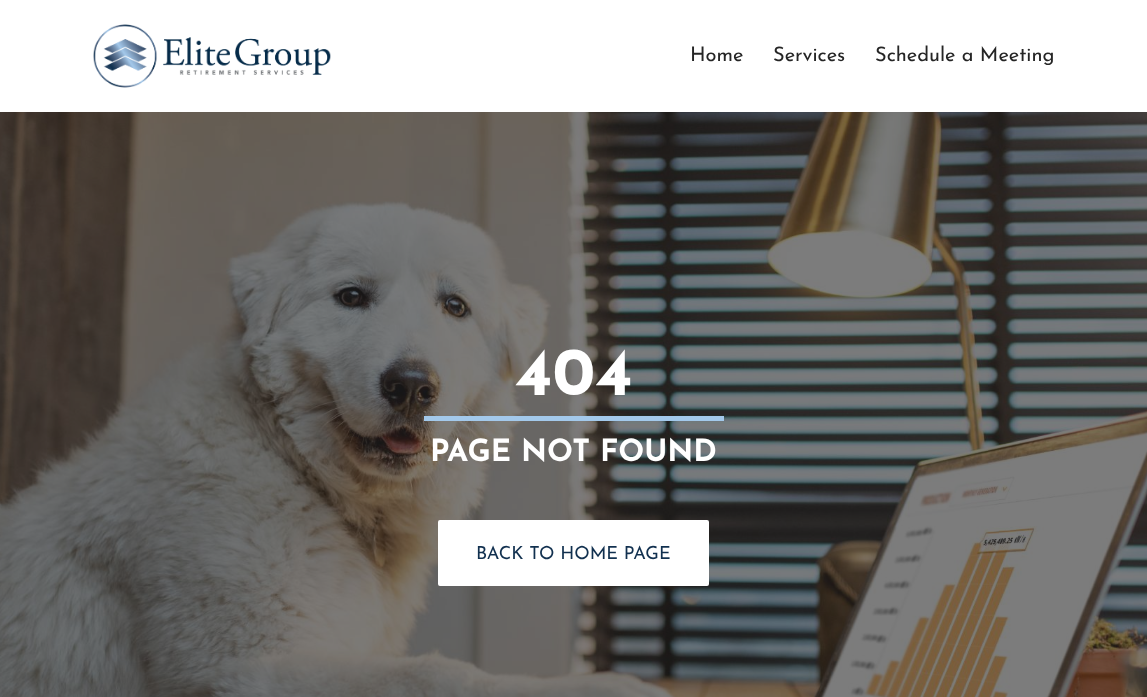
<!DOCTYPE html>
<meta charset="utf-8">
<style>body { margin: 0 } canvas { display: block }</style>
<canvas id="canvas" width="1147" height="697"></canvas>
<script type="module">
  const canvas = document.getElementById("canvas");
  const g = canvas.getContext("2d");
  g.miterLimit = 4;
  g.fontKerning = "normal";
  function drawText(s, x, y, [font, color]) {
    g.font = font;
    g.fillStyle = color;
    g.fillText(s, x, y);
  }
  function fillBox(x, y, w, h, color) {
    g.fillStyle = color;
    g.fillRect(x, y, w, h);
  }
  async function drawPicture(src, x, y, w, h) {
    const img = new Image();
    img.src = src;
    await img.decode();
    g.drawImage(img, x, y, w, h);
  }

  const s1 = ["20px Josefin Sans", "#252525"];
  const s2 = ["bold 68px Josefin Sans", "#FFFFFF"];
  const s3 = ["bold 30.5px Josefin Sans", "#FFFFFF"];
  const s4 = ["18px Josefin Sans", "#11304F"];

  fillBox(0, 0, 1147, 697, "#FFFFFF");
  await drawPicture("pic1.png", 93, 24, 238, 64);
  drawText("Home", 690, 61, s1);
  drawText("Services", 773, 61, s1);
  drawText("Schedule a Meeting", 875, 61, s1);
  await drawPicture("pic2.png", 0, 112, 1147, 585);
  drawText("404", 515, 395, s2);
  fillBox(424, 416, 300, 5, "#A3C9EB");
  drawText("PAGE NOT FOUND", 430, 461, s3);
  g.beginPath();
  g.roundRect(439, 521, 269, 64, 1);
  g.fill();
  g.strokeStyle = "#FFFFFF";
  g.lineWidth = 2;
  g.stroke();
  drawText("BACK TO HOME PAGE", 476, 559, s4);
</script>
